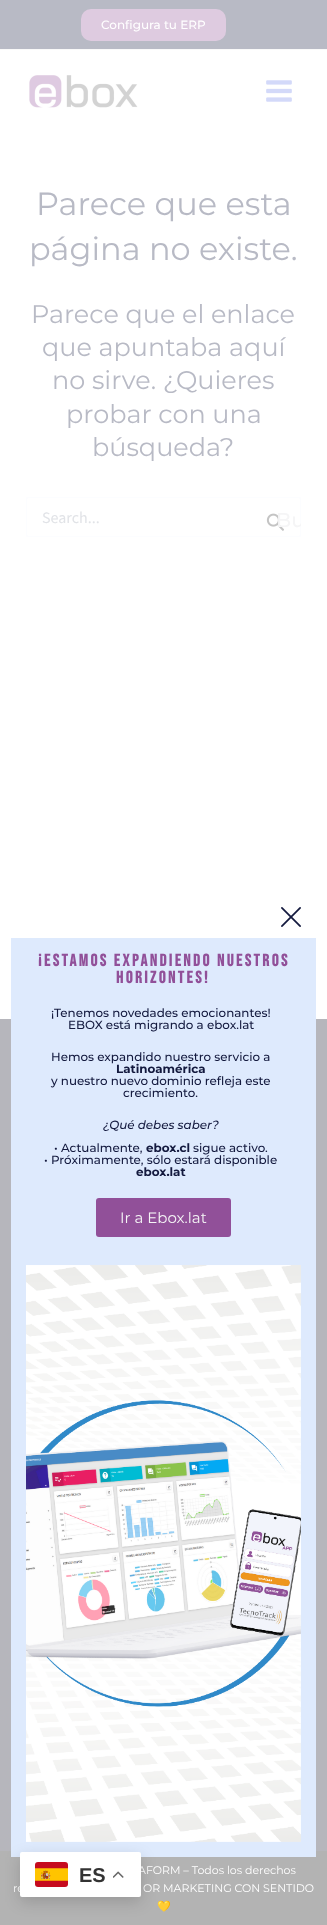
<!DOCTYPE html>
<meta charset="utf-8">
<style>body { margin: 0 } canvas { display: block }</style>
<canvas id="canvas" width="327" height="1925"></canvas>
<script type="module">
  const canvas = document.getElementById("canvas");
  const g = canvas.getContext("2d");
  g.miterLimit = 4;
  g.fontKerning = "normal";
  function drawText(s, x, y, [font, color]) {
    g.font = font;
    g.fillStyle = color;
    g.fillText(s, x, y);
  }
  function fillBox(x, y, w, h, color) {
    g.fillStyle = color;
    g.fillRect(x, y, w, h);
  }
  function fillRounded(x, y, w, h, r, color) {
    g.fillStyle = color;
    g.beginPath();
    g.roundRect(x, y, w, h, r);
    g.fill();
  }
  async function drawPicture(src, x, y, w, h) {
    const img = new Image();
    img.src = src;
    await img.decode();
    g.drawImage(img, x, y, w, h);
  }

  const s1 = ["500 12px Montserrat", "#FFFFFF"];
  const s2 = ["32px Montserrat", "#B8BAC5"];
  const s3 = ["25.5px Montserrat", "#B8BAC5"];
  const s4 = ["16px Source Sans Pro", "#E1E3E7"];
  const s5 = ["500 20px Montserrat", "#F5F5F6"];
  const s6 = ["11px Montserrat", "#FFFFFF"];
  const s7 = ["11px Noto Color Emoji", "#FFFFFF"];
  const s8 = ["bold 17px Bebas Neue", "#915099"];
  const s9 = ["500 11.9px Montserrat", "#13193E"];
  const s10 = ["bold 11.9px Montserrat", "#13193E"];
  const s11 = ["italic 500 11.9px Montserrat", "#13193E"];
  const s12 = ["15px Montserrat", "#F5F5F6"];
  const s13 = ["bold 20px Liberation Sans", "#333333"];

  fillBox(0, 0, 327, 1925, "#FFFFFF");
  fillBox(0, 0, 327, 49, "#B8BAC5");
  fillBox(0, 49, 327, 1, "#F9F9F9");
  fillRounded(81, 9, 145, 32, 10, "#DECBE0");
  drawText("Configura tu ERP", 101, 29, s1);
  await drawPicture("pic1.png", 29, 75, 109, 33);
  await drawPicture("pic2.png", 266, 80, 26, 22);
  drawText("Parece que esta", 36, 215, s2);
  drawText("página no existe.", 29, 260, s2);
  drawText("Parece que el enlace", 31, 323, s3);
  drawText("que apuntaba aquí", 42, 356, s3);
  drawText("no sirve. ¿Quieres", 52, 389, s3);
  drawText("probar con una", 66, 423, s3);
  drawText("búsqueda?", 92, 456, s3);
  g.beginPath();
  g.roundRect(26.5, 497.5, 274, 39, 1.5);
  g.strokeStyle = "#FCFDFF";
  g.stroke();
  drawText("Search...", 42, 523, s4);
  await drawPicture("pic3.png", 266, 513, 18, 18);
  g.save();
  g.beginPath();
  g.roundRect(256, 497, 45, 46, 2);
  g.clip();
  drawText("Bu", 276, 527, s5);
  g.restore();
  fillBox(0, 1019, 327, 832, "#B6B6BC");
  fillBox(0, 1851, 327, 74, "#B3B3B3");
  drawText("AFORM – Todos los derechos", 138, 1874, s6);
  drawText("re", 13, 1892, s6);
  drawText("OR MARKETING CON SENTIDO", 143, 1892, s6);
  drawText("💛", 157, 1910, s7);
  fillBox(11, 938, 305, 919, "#DEEAFD");
  await drawPicture("pic4.png", 26, 1265, 275, 577);
  await drawPicture("pic5.png", 281, 907, 20, 20);
  g.letterSpacing = "2.5px";
  drawText("¡ESTAMOS EXPANDIENDO NUESTROS", 38, 966, s8);
  drawText("HORIZONTES!", 116, 983, s8);
  g.letterSpacing = "0px";
  drawText("¡Tenemos novedades emocionantes!", 51, 1017, s9);
  drawText("EBOX está migrando a ebox.lat", 68, 1029, s9);
  drawText("Hemos expandido nuestro servicio a", 51, 1061, s9);
  drawText("Latinoamérica", 116, 1073, s10);
  drawText("y nuestro nuevo dominio refleja este", 51, 1085, s9);
  drawText("crecimiento.", 123, 1097, s9);
  drawText("¿Qué debes saber?", 103, 1129, s11);
  drawText("• Actualmente,", 54, 1152, s9);
  drawText("ebox.cl", 146, 1152, s10);
  drawText("sigue activo.", 193, 1152, s9);
  drawText("• Próximamente, sólo estará disponible", 44, 1164, s9);
  drawText("ebox.lat", 136, 1176, s10);
  fillRounded(96, 1198, 135, 39, 3, "#915099");
  drawText("Ir a Ebox.lat", 120, 1223, s12);
  g.fillStyle = "rgba(0, 0, 0, 0.15)";
  g.filter = "blur(7.5px)";
  g.beginPath();
  g.roundRect(20, 1857, 121, 45, 2);
  g.fill();
  g.filter = "none";
  fillRounded(20, 1852, 121, 45, 2, "#FFFFFF");
  await drawPicture("pic6.png", 35, 1862, 33, 25);
  drawText("ES", 79, 1882, s13);
  await drawPicture("pic7.png", 113, 1871, 11, 7);
</script>
